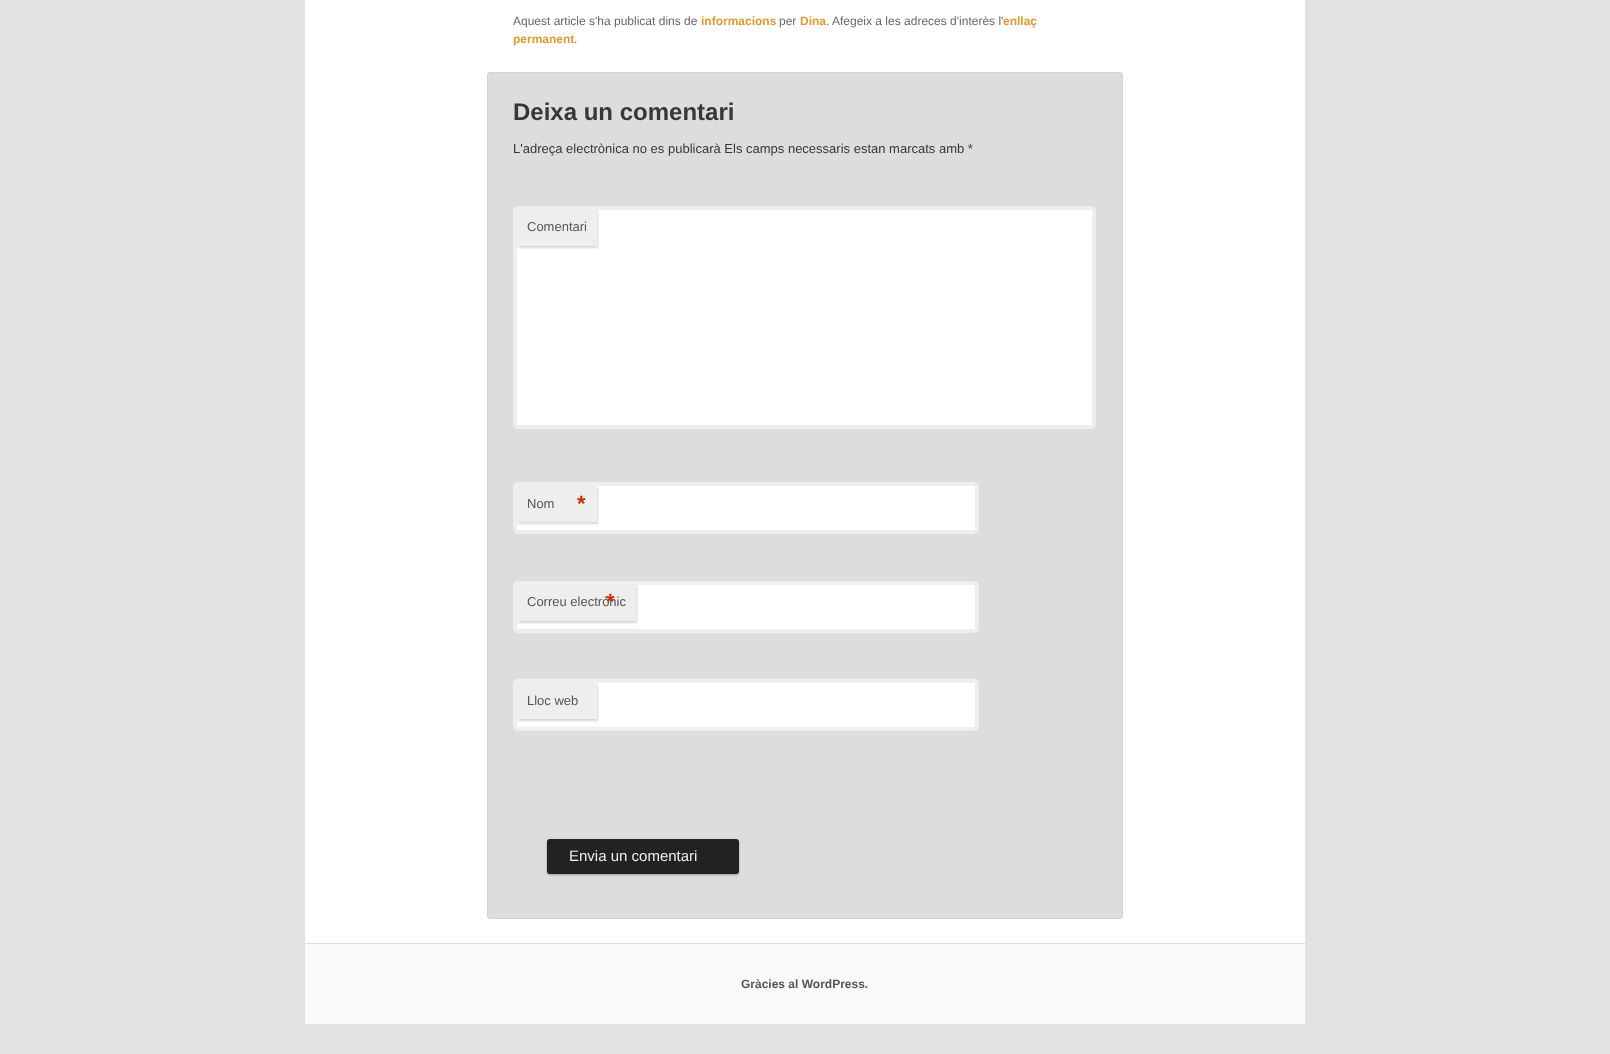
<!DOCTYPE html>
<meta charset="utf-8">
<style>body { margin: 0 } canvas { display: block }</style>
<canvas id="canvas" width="1610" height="1054"></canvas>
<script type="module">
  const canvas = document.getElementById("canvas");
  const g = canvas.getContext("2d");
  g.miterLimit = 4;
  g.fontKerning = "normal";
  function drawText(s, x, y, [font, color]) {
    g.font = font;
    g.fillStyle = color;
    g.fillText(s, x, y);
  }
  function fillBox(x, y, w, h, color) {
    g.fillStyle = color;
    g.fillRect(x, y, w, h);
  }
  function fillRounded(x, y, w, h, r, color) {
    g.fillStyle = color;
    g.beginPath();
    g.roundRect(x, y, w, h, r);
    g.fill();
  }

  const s1 = ["12px Liberation Sans", "#666666"];
  const s2 = ["bold 12px Liberation Sans", "#DD9933"];
  const s3 = ["bold 24px Liberation Sans", "#373737"];
  const s4 = ["13px Liberation Sans", "#373737"];
  const s5 = ["13px Liberation Sans", "#555555"];
  const s6 = ["bold 22px Liberation Sans", "#BD3500"];
  const s7 = ["15px Liberation Sans", "#EEEEEE"];
  const s8 = ["bold 12px Liberation Sans", "#555555"];

  fillBox(0, 0, 1610, 1054, "#E2E2E2");
  fillBox(305, 0, 1000, 943, "#FFFFFF");
  drawText("Aquest article s'ha publicat dins de", 513, 25, s1);
  drawText("informacions", 701, 25, s2);
  drawText("per", 779, 25, s1);
  drawText("Dina", 800, 25, s2);
  drawText(". Afegeix a les adreces d'interès l'", 826, 25, s1);
  drawText("enllaç", 1003, 25, s2);
  drawText("permanent", 513, 43, s2);
  drawText(".", 574, 43, s1);
  g.fillStyle = "#DDDDDD";
  g.beginPath();
  g.roundRect(487.5, 72.5, 635, 846, 2.5);
  g.fill();
  g.strokeStyle = "#D3D3D3";
  g.stroke();
  drawText("Deixa un comentari", 513, 120, s3);
  drawText("L'adreça electrònica no es publicarà Els camps necessaris estan marcats amb *", 513, 153, s4);
  g.fillStyle = "#FFFFFF";
  g.beginPath();
  g.roundRect(515, 208, 579, 219, 3);
  g.fill();
  g.strokeStyle = "#EEEEEE";
  g.lineWidth = 4;
  g.stroke();
  g.fillStyle = "rgba(204, 204, 204, 0.8)";
  g.filter = "blur(1px)";
  g.beginPath();
  g.rect(518, 211, 80, 37);
  g.fill();
  g.filter = "none";
  fillBox(517, 210, 80, 36, "#EEEEEE");
  drawText("Comentari", 527, 231, s5);
  g.fillStyle = "#FFFFFF";
  g.beginPath();
  g.roundRect(515, 484, 462, 48, 3);
  g.fill();
  g.stroke();
  g.fillStyle = "rgba(204, 204, 204, 0.8)";
  g.filter = "blur(1px)";
  g.beginPath();
  g.rect(518, 488, 80, 36);
  g.fill();
  g.filter = "none";
  fillBox(517, 486, 80, 36, "#EEEEEE");
  drawText("Nom", 527, 508, s5);
  drawText("*", 577, 511, s6);
  g.fillStyle = "#FFFFFF";
  g.beginPath();
  g.roundRect(515, 583, 462, 48, 3);
  g.fill();
  g.stroke();
  g.fillStyle = "rgba(204, 204, 204, 0.8)";
  g.filter = "blur(1px)";
  g.beginPath();
  g.rect(518, 586, 119, 37);
  g.fill();
  g.filter = "none";
  fillBox(517, 585, 119, 36, "#EEEEEE");
  drawText("Correu electrònic", 527, 606, s5);
  drawText("*", 606, 609, s6);
  g.fillStyle = "#FFFFFF";
  g.beginPath();
  g.roundRect(515, 681, 462, 48, 3);
  g.fill();
  g.stroke();
  g.fillStyle = "rgba(204, 204, 204, 0.8)";
  g.filter = "blur(1px)";
  g.beginPath();
  g.rect(518, 685, 80, 36);
  g.fill();
  g.filter = "none";
  fillBox(517, 683, 80, 36, "#EEEEEE");
  drawText("Lloc web", 527, 705, s5);
  g.fillStyle = "rgba(0, 0, 0, 0.3)";
  g.filter = "blur(1px)";
  g.beginPath();
  g.roundRect(547, 840, 192, 35, 3);
  g.fill();
  g.filter = "none";
  fillRounded(547, 839, 192, 35, 3, "#222222");
  drawText("Envia un comentari", 569, 861, s7);
  fillBox(305, 944, 1000, 80, "#F9F9F9");
  fillBox(305, 943, 1000, 1, "#DDDDDD");
  drawText("Gràcies al WordPress.", 741, 988, s8);
</script>
